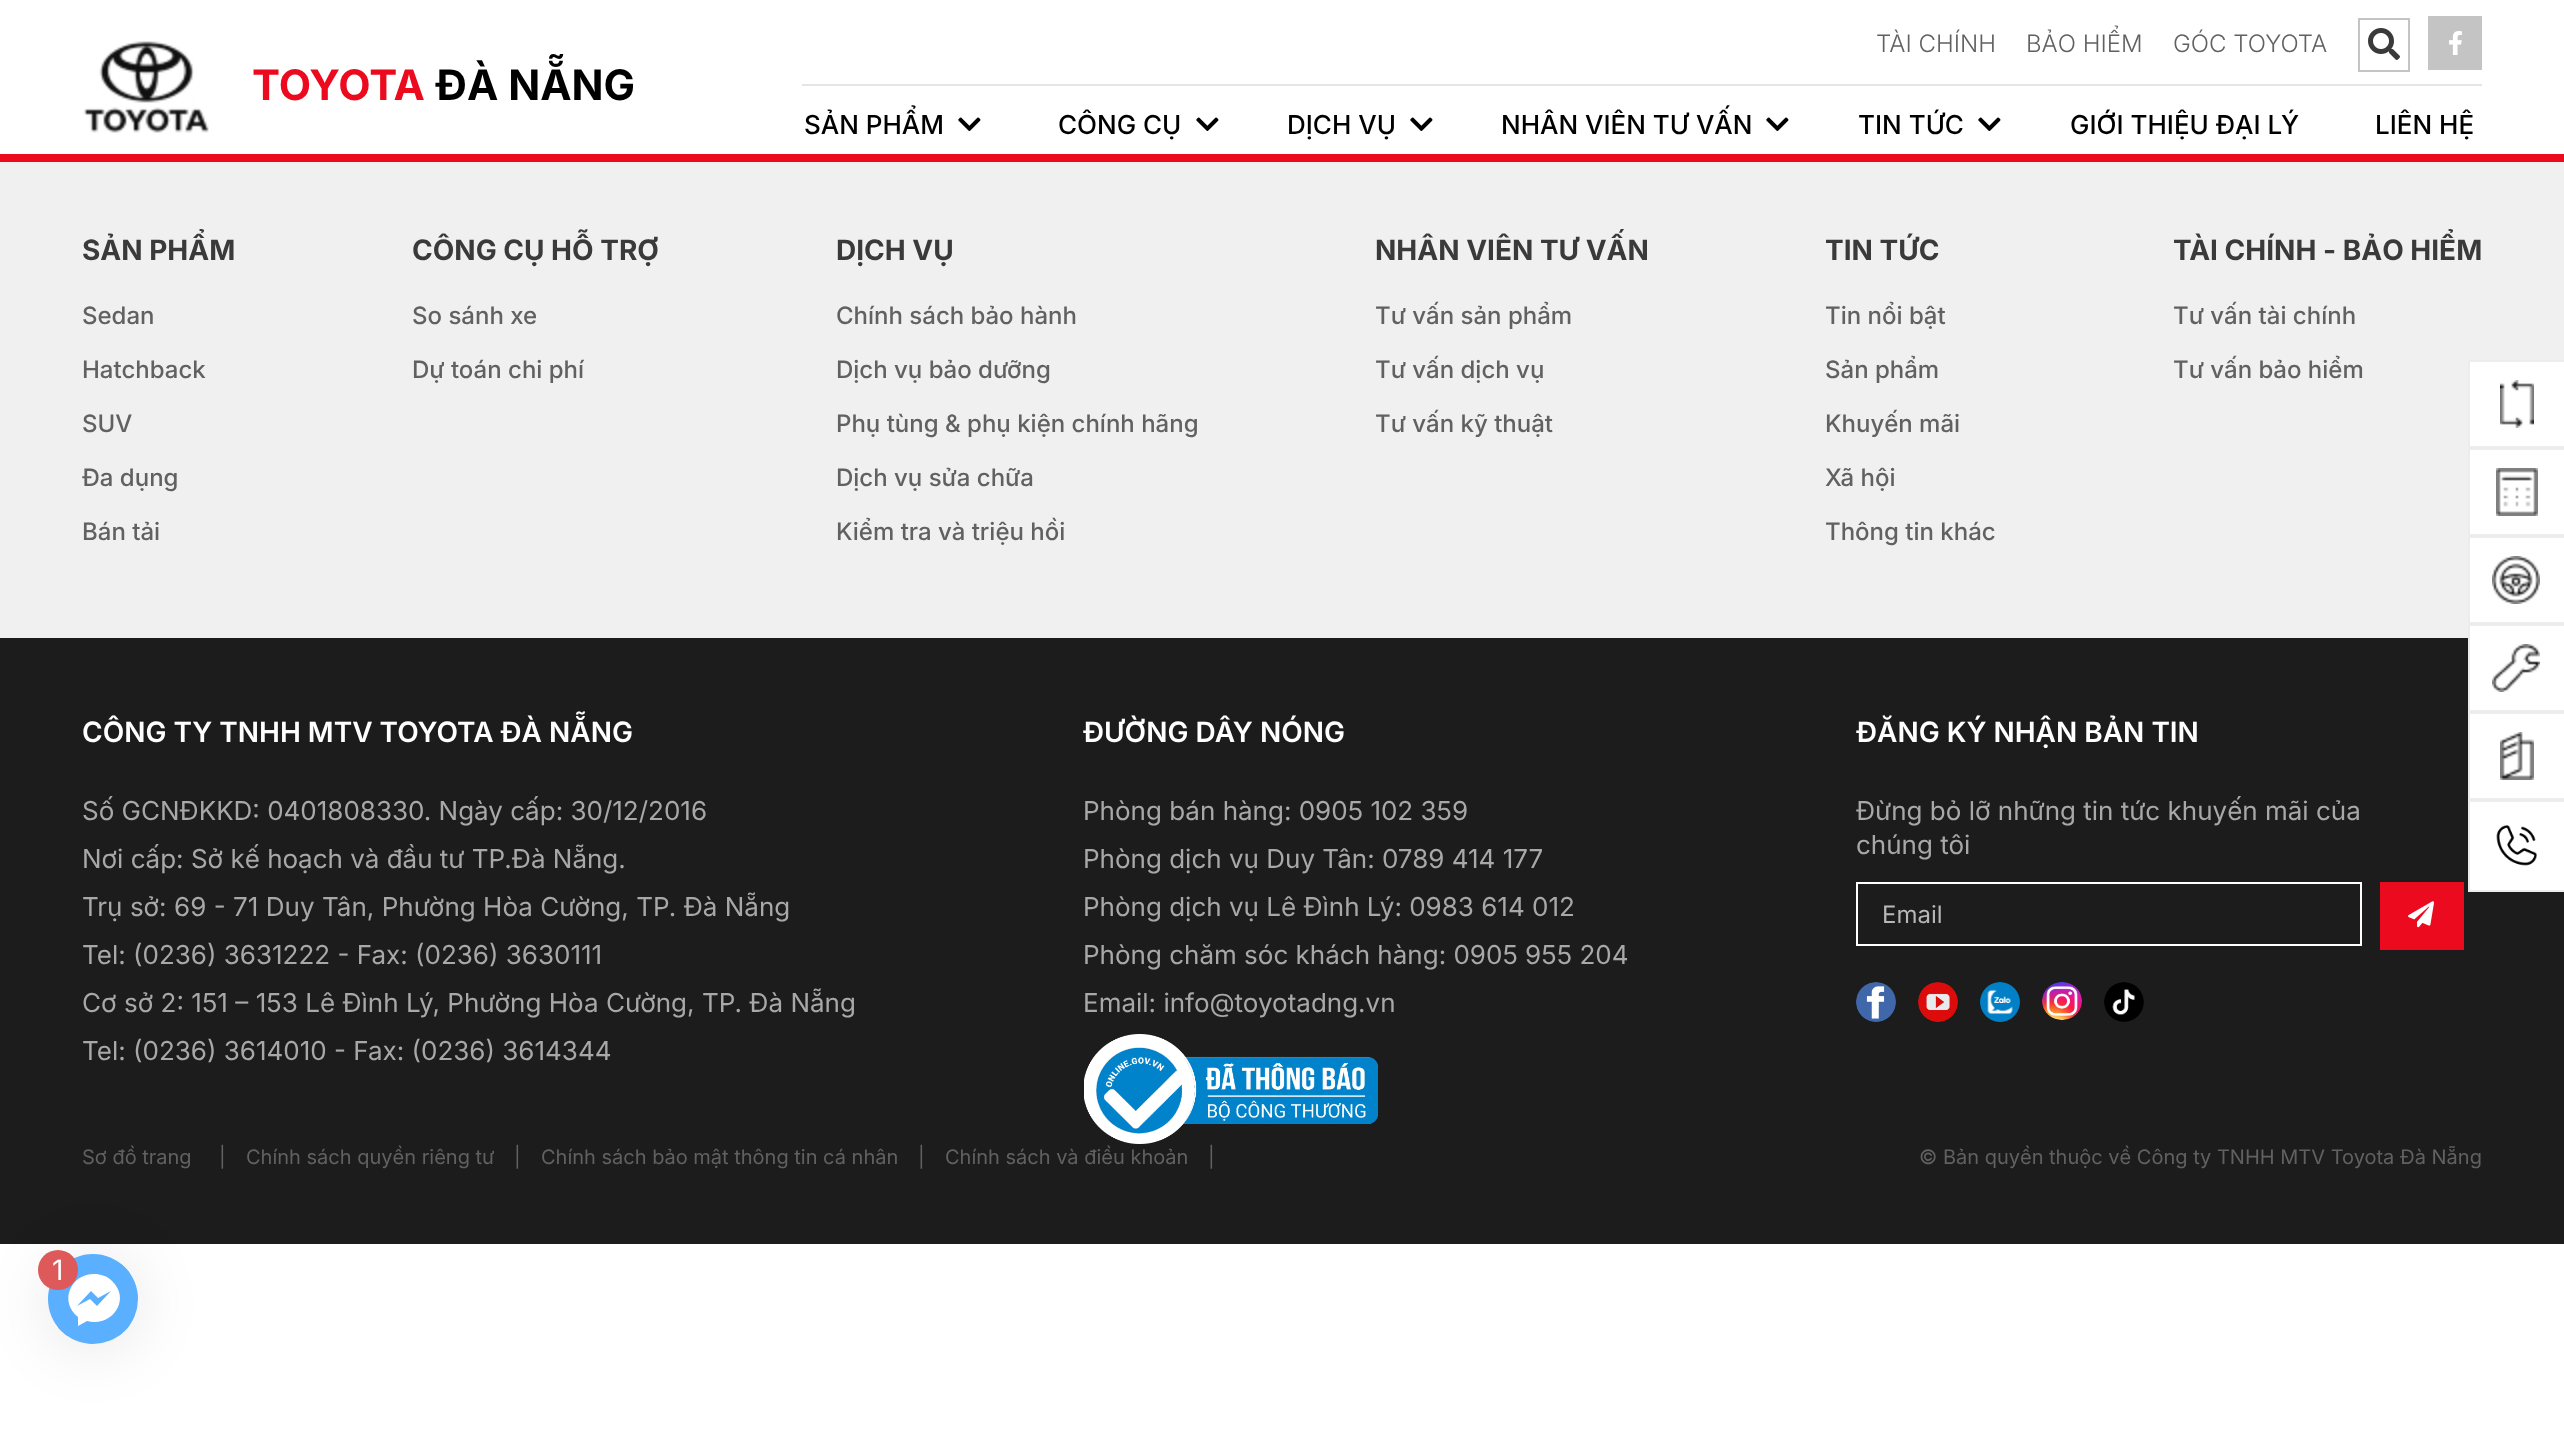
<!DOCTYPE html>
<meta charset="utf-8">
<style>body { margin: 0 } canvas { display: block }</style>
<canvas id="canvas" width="2564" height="1443"></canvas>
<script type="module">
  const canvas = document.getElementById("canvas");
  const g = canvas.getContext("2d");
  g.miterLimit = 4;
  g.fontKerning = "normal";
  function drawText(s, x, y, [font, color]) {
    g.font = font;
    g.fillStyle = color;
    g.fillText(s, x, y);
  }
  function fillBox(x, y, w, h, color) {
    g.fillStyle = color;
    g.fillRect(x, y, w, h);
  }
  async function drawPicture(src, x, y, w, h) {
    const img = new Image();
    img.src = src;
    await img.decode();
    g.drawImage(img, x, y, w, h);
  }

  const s1 = ["bold 42px Inter", "#EB0A1E"];
  const s2 = ["bold 42px Inter", "#000000"];
  const s3 = ["300 24px Inter", "#616161"];
  const s4 = ["500 26px Inter", "#000000"];
  const s5 = ["bold 28px Inter", "#3A3A3A"];
  const s6 = ["500 24px Inter", "#616161"];
  const s7 = ["600 28px Inter", "#FFFFFF"];
  const s8 = ["26px Inter", "#A8A8A8"];
  const s9 = ["24px Inter", "#B7B7B7"];
  const s10 = ["20px Inter", "#616161"];
  const s11 = ["28px Inter", "#FFFFFF"];

  fillBox(0, 0, 2564, 1443, "#FFFFFF");
  await drawPicture("pic1.png", 83, 41, 126, 92);
  drawText("TOYOTA", 252, 100, s1);
  drawText("ĐÀ NẴNG", 435, 100, s2);
  drawText("TÀI CHÍNH", 1876, 52, s3);
  drawText("BẢO HIỂM", 2026, 52, s3);
  drawText("GÓC TOYOTA", 2173, 52, s3);
  g.strokeStyle = "#C4C4C4";
  g.lineWidth = 2;
  g.strokeRect(2359, 19, 50, 52);
  await drawPicture("pic2.png", 2368, 28, 32, 32);
  fillBox(2428, 16, 54, 54, "#C4C4C4");
  await drawPicture("pic3.png", 2449, 31, 13, 24);
  fillBox(802, 84, 1680, 2, "#E5E5E5");
  drawText("SẢN PHẨM", 804, 134, s4);
  await drawPicture("pic4.png", 958, 117, 23, 14);
  drawText("CÔNG CỤ", 1058, 134, s4);
  await drawPicture("pic4.png", 1196, 117, 23, 14);
  drawText("DỊCH VỤ", 1287, 134, s4);
  await drawPicture("pic4.png", 1410, 117, 23, 14);
  drawText("NHÂN VIÊN TƯ VẤN", 1501, 134, s4);
  await drawPicture("pic4.png", 1766, 117, 23, 14);
  drawText("TIN TỨC", 1858, 134, s4);
  await drawPicture("pic4.png", 1978, 117, 23, 14);
  drawText("GIỚI THIỆU ĐẠI LÝ", 2070, 134, s4);
  drawText("LIÊN HỆ", 2375, 134, s4);
  fillBox(0, 154, 2564, 8, "#EB0A1E");
  fillBox(0, 162, 2564, 476, "#F0F0F0");
  drawText("SẢN PHẨM", 82, 260, s5);
  drawText("Sedan", 82, 324, s6);
  drawText("Hatchback", 82, 378, s6);
  drawText("SUV", 82, 432, s6);
  drawText("Đa dụng", 82, 486, s6);
  drawText("Bán tải", 82, 540, s6);
  drawText("CÔNG CỤ HỖ TRỢ", 412, 260, s5);
  drawText("So sánh xe", 412, 324, s6);
  drawText("Dự toán chi phí", 412, 378, s6);
  drawText("DỊCH VỤ", 836, 260, s5);
  drawText("Chính sách bảo hành", 836, 324, s6);
  drawText("Dịch vụ bảo dưỡng", 836, 378, s6);
  drawText("Phụ tùng & phụ kiện chính hãng", 836, 432, s6);
  drawText("Dịch vụ sửa chữa", 836, 486, s6);
  drawText("Kiểm tra và triệu hồi", 836, 540, s6);
  drawText("NHÂN VIÊN TƯ VẤN", 1375, 260, s5);
  drawText("Tư vấn sản phẩm", 1375, 324, s6);
  drawText("Tư vấn dịch vụ", 1375, 378, s6);
  drawText("Tư vấn kỹ thuật", 1375, 432, s6);
  drawText("TIN TỨC", 1825, 260, s5);
  drawText("Tin nổi bật", 1825, 324, s6);
  drawText("Sản phẩm", 1825, 378, s6);
  drawText("Khuyến mãi", 1825, 432, s6);
  drawText("Xã hội", 1825, 486, s6);
  drawText("Thông tin khác", 1825, 540, s6);
  drawText("TÀI CHÍNH - BẢO HIỂM", 2173, 260, s5);
  drawText("Tư vấn tài chính", 2173, 324, s6);
  drawText("Tư vấn bảo hiểm", 2173, 378, s6);
  fillBox(0, 638, 2564, 606, "#1C1C1C");
  drawText("CÔNG TY TNHH MTV TOYOTA ĐÀ NẴNG", 82, 742, s7);
  drawText("Số GCNĐKKD: 0401808330. Ngày cấp: 30/12/2016", 82, 820, s8);
  drawText("Nơi cấp: Sở kế hoạch và đầu tư TP.Đà Nẵng.", 82, 868, s8);
  g.wordSpacing = "0.1px";
  drawText("Trụ sở: 69 - 71 Duy Tân, Phường Hòa Cường, TP. Đà Nẵng", 82, 916, s8);
  g.wordSpacing = "0px";
  drawText("Tel: (0236) 3631222 - Fax: (0236) 3630111", 82, 964, s8);
  g.wordSpacing = "0.1px";
  drawText("Cơ sở 2: 151 – 153 Lê Đình Lý, Phường Hòa Cường, TP. Đà Nẵng", 82, 1012, s8);
  g.wordSpacing = "0px";
  drawText("Tel: (0236) 3614010 - Fax: (0236) 3614344", 82, 1060, s8);
  drawText("ĐƯỜNG DÂY NÓNG", 1083, 742, s7);
  drawText("Phòng bán hàng: 0905 102 359", 1083, 820, s8);
  drawText("Phòng dịch vụ Duy Tân: 0789 414 177", 1083, 868, s8);
  drawText("Phòng dịch vụ Lê Đình Lý: 0983 614 012", 1083, 916, s8);
  drawText("Phòng chăm sóc khách hàng: 0905 955 204", 1083, 964, s8);
  drawText("Email: info@toyotadng.vn", 1083, 1012, s8);
  await drawPicture("pic5.png", 1084, 1034, 294, 110);
  drawText("ĐĂNG KÝ NHẬN BẢN TIN", 1856, 742, s7);
  drawText("Đừng bỏ lỡ những tin tức khuyến mãi của", 1856, 820, s8);
  drawText("chúng tôi", 1856, 854, s8);
  g.strokeStyle = "#FFFFFF";
  g.strokeRect(1857, 883, 504, 62);
  drawText("Email", 1882, 923, s9);
  fillBox(2380, 882, 84, 68, "#EB0A1E");
  await drawPicture("pic6.png", 2408, 901, 26, 27);
  await drawPicture("pic7.png", 1856, 982, 40, 40);
  await drawPicture("pic8.png", 1918, 982, 40, 40);
  await drawPicture("pic9.png", 1980, 982, 40, 40);
  await drawPicture("pic10.png", 2042, 982, 40, 38);
  await drawPicture("pic11.png", 2104, 982, 40, 40);
  drawText("Sơ đồ trang", 82, 1164, s10);
  drawText("|", 219, 1164, s10);
  drawText("Chính sách quyền riêng tư", 246, 1164, s10);
  drawText("|", 514, 1164, s10);
  drawText("Chính sách bảo mật thông tin cá nhân", 541, 1164, s10);
  drawText("|", 918, 1164, s10);
  drawText("Chính sách và điều khoản", 945, 1164, s10);
  drawText("|", 1208, 1164, s10);
  drawText("© Bản quyền thuộc về Công ty TNHH MTV Toyota Đà Nẵng", 1919, 1164, s10);
  g.fillStyle = "#FFFFFF";
  g.beginPath();
  g.rect(2469, 361, 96, 86);
  g.fill();
  g.strokeStyle = "#ECECEC";
  g.stroke();
  await drawPicture("pic12.png", 2500, 380, 34, 48);
  g.beginPath();
  g.rect(2469, 449, 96, 86);
  g.fill();
  g.stroke();
  await drawPicture("pic13.png", 2496, 468, 42, 48);
  g.beginPath();
  g.rect(2469, 537, 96, 86);
  g.fill();
  g.stroke();
  await drawPicture("pic14.png", 2492, 556, 48, 48);
  g.beginPath();
  g.rect(2469, 625, 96, 86);
  g.fill();
  g.stroke();
  await drawPicture("pic15.png", 2492, 644, 48, 48);
  g.beginPath();
  g.rect(2469, 713, 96, 86);
  g.fill();
  g.stroke();
  await drawPicture("pic16.png", 2500, 732, 34, 48);
  g.beginPath();
  g.rect(2469, 801, 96, 90);
  g.fill();
  g.stroke();
  await drawPicture("pic17.png", 2496, 825, 41, 41);
  g.fillStyle = "rgba(0, 0, 0, 0.1)";
  g.filter = "blur(32px)";
  g.beginPath();
  g.roundRect(48, 1258, 90, 90, 45);
  g.fill();
  g.filter = "none";
  g.fillStyle = "#5AAFFF";
  g.beginPath();
  g.arc(93, 1299, 45, 0, Math.PI * 2);
  g.fill();
  g.save();
  g.beginPath();
  g.roundRect(48, 1254, 90, 90, 45);
  g.clip();
  fillBox(58, 1264, 72, 72, "#5AAFFF");
  g.restore();
  g.fillStyle = "#FFFFFF";
  g.beginPath();
  g.moveTo(94, 1274);
  g.bezierCurveTo(70, 1274, 59, 1302, 78, 1317);
  g.lineTo(78, 1326);
  g.lineTo(87, 1321);
  g.bezierCurveTo(111, 1328, 132, 1300, 112, 1281);
  g.bezierCurveTo(107, 1276, 101, 1274, 94, 1274);
  g.closePath();
  g.moveTo(97, 1306);
  g.lineTo(90, 1299);
  g.lineTo(77, 1306);
  g.lineTo(91, 1291);
  g.lineTo(98, 1298);
  g.lineTo(111, 1291);
  g.closePath();
  g.fill();
  g.fillStyle = "#DE5A5A";
  g.beginPath();
  g.arc(58, 1270, 20, 0, Math.PI * 2);
  g.fill();
  drawText("1", 52, 1280, s11);
</script>
